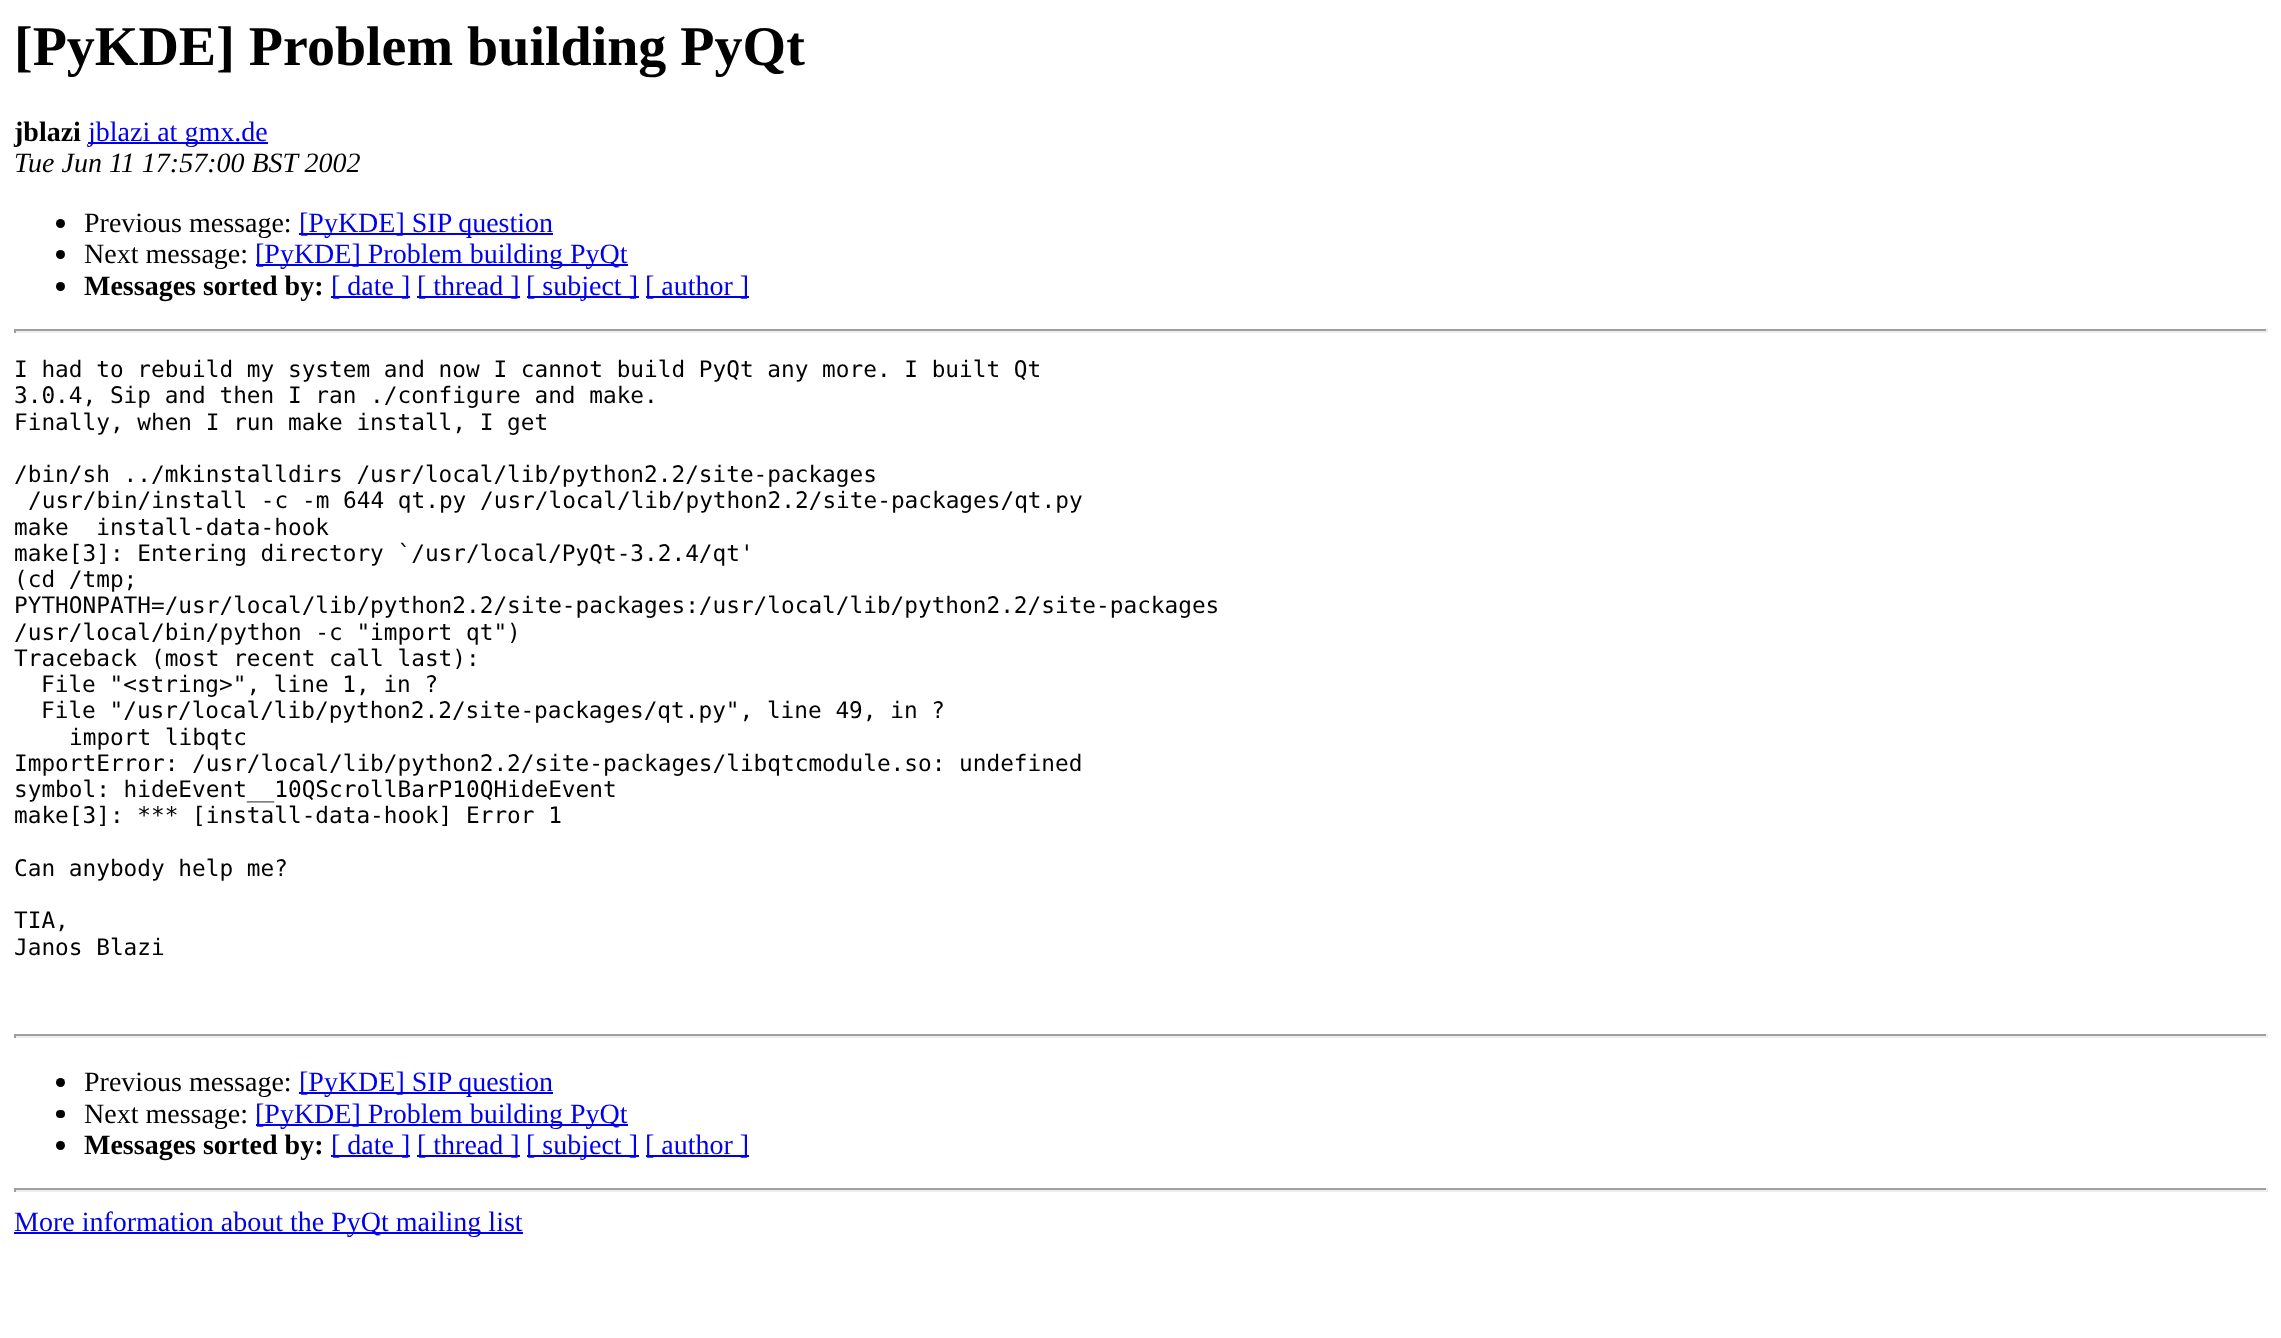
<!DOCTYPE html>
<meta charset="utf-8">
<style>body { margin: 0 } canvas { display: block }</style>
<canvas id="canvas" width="2281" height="1338"></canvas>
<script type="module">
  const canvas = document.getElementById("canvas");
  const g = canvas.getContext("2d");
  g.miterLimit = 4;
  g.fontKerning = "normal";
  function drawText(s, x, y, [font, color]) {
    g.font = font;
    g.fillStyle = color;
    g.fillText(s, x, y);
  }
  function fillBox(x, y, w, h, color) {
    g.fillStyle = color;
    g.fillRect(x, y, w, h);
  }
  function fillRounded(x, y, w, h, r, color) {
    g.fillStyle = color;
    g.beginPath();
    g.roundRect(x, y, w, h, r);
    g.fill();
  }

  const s1 = ["bold 56px Liberation Serif", "#000000"];
  const s2 = ["bold 28px Liberation Serif", "#000000"];
  const s3 = ["28px Liberation Serif", "#0000EE"];
  const s4 = ["italic 28px Liberation Serif", "#000000"];
  const s5 = ["28px Liberation Serif", "#000000"];
  const s6 = ["22.75px DejaVu Sans Mono", "#000000"];

  fillBox(0, 0, 2281, 1338, "#FFFFFF");
  drawText("[PyKDE] Problem building PyQt", 14, 65, s1);
  drawText("jblazi", 14, 141, s2);
  fillBox(88, 142, 180, 2, "#0000EE");
  drawText("jblazi at gmx.de", 88, 141, s3);
  drawText("Tue Jun 11 17:57:00 BST 2002", 14, 172, s4);
  g.beginPath();
  g.arc(60.5, 223.5, 4.5, 0, Math.PI * 2);
  g.fill();
  drawText("Previous message:", 84, 232, s5);
  fillBox(299, 233, 254, 2, "#0000EE");
  drawText("[PyKDE] SIP question", 299, 232, s3);
  g.fillStyle = "#000000";
  g.beginPath();
  g.arc(60.5, 254.5, 4.5, 0, Math.PI * 2);
  g.fill();
  drawText("Next message:", 84, 263, s5);
  fillBox(256, 264, 372, 2, "#0000EE");
  drawText("[PyKDE] Problem building PyQt", 255, 263, s3);
  g.fillStyle = "#000000";
  g.beginPath();
  g.arc(60.5, 286.5, 4.5, 0, Math.PI * 2);
  g.fill();
  drawText("Messages sorted by:", 84, 295, s2);
  fillBox(331, 296, 79, 2, "#0000EE");
  drawText("[ date ]", 331, 295, s3);
  fillBox(417, 296, 103, 2, "#0000EE");
  drawText("[ thread ]", 417, 295, s3);
  fillBox(527, 296, 112, 2, "#0000EE");
  drawText("[ subject ]", 526, 295, s3);
  fillBox(646, 296, 103, 2, "#0000EE");
  drawText("[ author ]", 645, 295, s3);
  fillBox(14, 329, 2254, 2, "#9F9F9F");
  fillBox(2266, 329, 2, 4, "#EEEEEE");
  fillBox(14, 331, 2254, 2, "#EEEEEE");
  fillBox(14, 329, 2, 4, "#9F9F9F");
  drawText("I had to rebuild my system and now I cannot build PyQt any more. I built Qt", 14, 377, s6);
  drawText("3.0.4, Sip and then I ran ./configure and make.", 14, 403, s6);
  drawText("Finally, when I run make install, I get", 14, 430, s6);
  drawText("/bin/sh ../mkinstalldirs /usr/local/lib/python2.2/site-packages", 14, 482, s6);
  drawText("/usr/bin/install -c -m 644 qt.py /usr/local/lib/python2.2/site-packages/qt.py", 28, 508, s6);
  drawText("make  install-data-hook", 14, 535, s6);
  drawText("make[3]: Entering directory `/usr/local/PyQt-3.2.4/qt'", 14, 561, s6);
  drawText("(cd /tmp;", 14, 587, s6);
  drawText("PYTHONPATH=/usr/local/lib/python2.2/site-packages:/usr/local/lib/python2.2/site-packages", 14, 613, s6);
  drawText("/usr/local/bin/python -c \"import qt\")", 14, 640, s6);
  drawText("Traceback (most recent call last):", 14, 666, s6);
  drawText("File \"<string>\", line 1, in ?", 41, 692, s6);
  drawText("File \"/usr/local/lib/python2.2/site-packages/qt.py\", line 49, in ?", 41, 718, s6);
  drawText("import libqtc", 69, 745, s6);
  drawText("ImportError: /usr/local/lib/python2.2/site-packages/libqtcmodule.so: undefined", 14, 771, s6);
  drawText("symbol: hideEvent__10QScrollBarP10QHideEvent", 14, 797, s6);
  drawText("make[3]: *** [install-data-hook] Error 1", 14, 823, s6);
  drawText("Can anybody help me?", 14, 876, s6);
  drawText("TIA,", 14, 928, s6);
  drawText("Janos Blazi", 14, 955, s6);
  fillBox(14, 1034, 2254, 2, "#9F9F9F");
  fillBox(2266, 1034, 2, 4, "#EEEEEE");
  fillBox(14, 1036, 2254, 2, "#EEEEEE");
  fillBox(14, 1034, 2, 4, "#9F9F9F");
  g.fillStyle = "#000000";
  g.beginPath();
  g.arc(60.5, 1082.5, 4.5, 0, Math.PI * 2);
  g.fill();
  drawText("Previous message:", 84, 1091, s5);
  fillBox(299, 1092, 254, 2, "#0000EE");
  drawText("[PyKDE] SIP question", 299, 1091, s3);
  fillRounded(56, 1110, 9, 8, 4, "#000000");
  drawText("Next message:", 84, 1123, s5);
  fillBox(256, 1124, 372, 2, "#0000EE");
  drawText("[PyKDE] Problem building PyQt", 255, 1123, s3);
  g.fillStyle = "#000000";
  g.beginPath();
  g.arc(60.5, 1145.5, 4.5, 0, Math.PI * 2);
  g.fill();
  drawText("Messages sorted by:", 84, 1154, s2);
  fillBox(331, 1155, 79, 2, "#0000EE");
  drawText("[ date ]", 331, 1154, s3);
  fillBox(417, 1155, 103, 2, "#0000EE");
  drawText("[ thread ]", 417, 1154, s3);
  fillBox(527, 1155, 112, 2, "#0000EE");
  drawText("[ subject ]", 526, 1154, s3);
  fillBox(646, 1155, 103, 2, "#0000EE");
  drawText("[ author ]", 645, 1154, s3);
  fillBox(14, 1188, 2254, 2, "#9F9F9F");
  fillBox(2266, 1188, 2, 4, "#EEEEEE");
  fillBox(14, 1190, 2254, 2, "#EEEEEE");
  fillBox(14, 1188, 2, 4, "#9F9F9F");
  fillBox(14, 1232, 509, 2, "#0000EE");
  drawText("More information about the PyQt mailing list", 14, 1231, s3);
</script>
